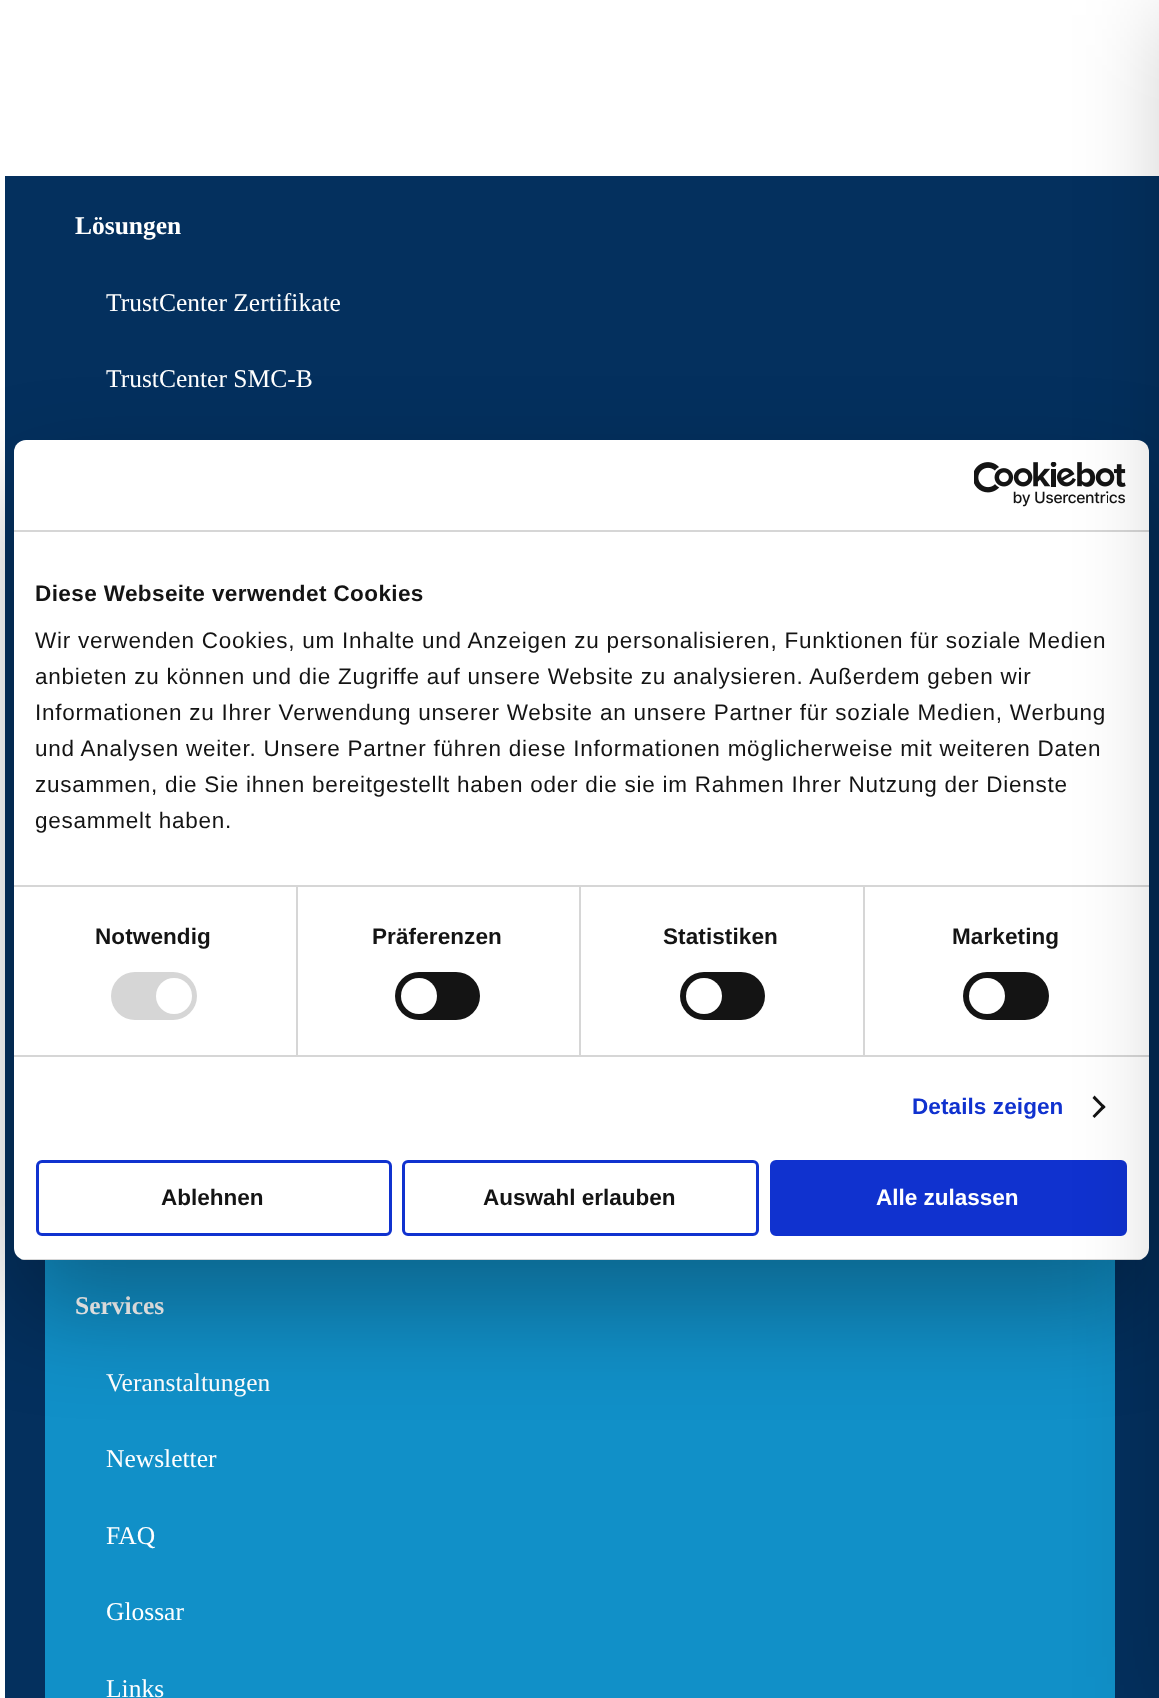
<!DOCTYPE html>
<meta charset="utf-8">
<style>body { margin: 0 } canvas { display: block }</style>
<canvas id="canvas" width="1159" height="1698"></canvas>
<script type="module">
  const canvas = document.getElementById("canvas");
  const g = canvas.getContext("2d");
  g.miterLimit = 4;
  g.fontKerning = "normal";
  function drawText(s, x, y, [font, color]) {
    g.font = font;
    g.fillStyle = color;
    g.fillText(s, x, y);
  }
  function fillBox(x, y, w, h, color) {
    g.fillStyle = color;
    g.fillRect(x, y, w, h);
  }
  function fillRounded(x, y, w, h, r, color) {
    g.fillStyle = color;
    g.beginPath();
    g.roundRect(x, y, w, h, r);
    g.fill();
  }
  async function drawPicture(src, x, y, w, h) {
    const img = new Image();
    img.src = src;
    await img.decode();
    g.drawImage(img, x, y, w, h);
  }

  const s1 = ["bold 25.5px Liberation Serif", "#FFFFFF"];
  const s2 = ["25.5px Liberation Serif", "#FFFFFF"];
  const s3 = ["bold 22.5px Liberation Sans", "#141414"];
  const s4 = ["22.5px Liberation Sans", "#141414"];
  const s5 = ["bold 22.5px Liberation Sans", "#1032CF"];
  const s6 = ["bold 22.5px Liberation Sans", "#FFFFFF"];

  fillBox(0, 0, 1159, 1698, "#FFFFFF");
  fillBox(5, 176, 1154, 1522, "#04305E");
  drawText("Lösungen", 75, 234, s1);
  drawText("TrustCenter Zertifikate", 106, 311, s2);
  drawText("TrustCenter SMC-B", 106, 387, s2);
  fillBox(45, 1260, 1070, 438, "#1190C8");
  drawText("Services", 75, 1314, s1);
  drawText("Veranstaltungen", 106, 1391, s2);
  drawText("Newsletter", 106, 1467, s2);
  drawText("FAQ", 106, 1544, s2);
  drawText("Glossar", 106, 1620, s2);
  drawText("Links", 106, 1697, s2);
  g.fillStyle = "rgba(0, 0, 0, 0.3)";
  g.filter = "blur(51px)";
  g.beginPath();
  g.roundRect(14, 488, 1135, 820, 12);
  g.fill();
  g.filter = "none";
  fillRounded(14, 440, 1135, 820, 12, "#FFFFFF");
  fillBox(14, 530, 1135, 2, "#D6D6D6");
  await drawPicture("pic1.png", 974, 462, 152, 45);
  fillBox(14, 885, 1135, 2, "#D6D6D6");
  fillBox(14, 1055, 1135, 2, "#D6D6D6");
  fillRounded(963, 972, 86, 48, 24, "#141414");
  g.beginPath();
  g.moveTo(1094.5, 1095.5);
  g.lineTo(1105.5, 1107);
  g.lineTo(1103.5, 1109);
  g.lineTo(1092.5, 1098);
  g.closePath();
  g.fill();
  g.beginPath();
  g.moveTo(1103.5, 1104.5);
  g.lineTo(1105.5, 1107);
  g.lineTo(1094.5, 1118);
  g.lineTo(1092.5, 1116);
  g.closePath();
  g.fill();
  g.save();
  g.beginPath();
  g.roundRect(14, 440, 1135, 820, 12);
  g.clip();
  fillBox(14, 1259, 1135, 1, "#D6D6D6");
  g.restore();
  g.fillStyle = "#1032CF";
  g.beginPath();
  g.roundRect(771.5, 1161.5, 354, 73, 4.5);
  g.fill();
  g.strokeStyle = "#1032CF";
  g.lineWidth = 3;
  g.stroke();
  g.fillStyle = "rgba(0, 0, 0, 0.2)";
  g.filter = "blur(45px)";
  g.beginPath();
  g.rect(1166, 15, 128, 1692);
  g.fill();
  g.filter = "none";
  g.letterSpacing = "0.4px";
  drawText("Diese Webseite verwendet Cookies", 35, 601, s3);
  g.letterSpacing = "0.75px";
  drawText("Wir verwenden Cookies, um Inhalte und Anzeigen zu personalisieren, Funktionen für soziale Medien", 35, 648, s4);
  drawText("anbieten zu können und die Zugriffe auf unsere Website zu analysieren. Außerdem geben wir", 35, 684, s4);
  drawText("Informationen zu Ihrer Verwendung unserer Website an unsere Partner für soziale Medien, Werbung", 35, 720, s4);
  drawText("und Analysen weiter. Unsere Partner führen diese Informationen möglicherweise mit weiteren Daten", 35, 756, s4);
  drawText("zusammen, die Sie ihnen bereitgestellt haben oder die sie im Rahmen Ihrer Nutzung der Dienste", 35, 792, s4);
  drawText("gesammelt haben.", 35, 828, s4);
  fillBox(296, 887, 2, 168, "#D6D6D6");
  g.letterSpacing = "0.1px";
  drawText("Notwendig", 95, 944, s3);
  fillRounded(111, 972, 86, 48, 24, "#D6D6D6");
  g.fillStyle = "#FFFFFF";
  g.beginPath();
  g.arc(174, 996, 18, 0, Math.PI * 2);
  g.fill();
  fillBox(579, 887, 2, 168, "#D6D6D6");
  drawText("Präferenzen", 372, 944, s3);
  fillRounded(395, 972, 85, 48, 24, "#141414");
  g.fillStyle = "#FFFFFF";
  g.beginPath();
  g.arc(419, 996, 18, 0, Math.PI * 2);
  g.fill();
  fillBox(863, 887, 2, 168, "#D6D6D6");
  drawText("Statistiken", 663, 944, s3);
  fillRounded(680, 972, 85, 48, 24, "#141414");
  g.fillStyle = "#FFFFFF";
  g.beginPath();
  g.arc(704, 996, 18, 0, Math.PI * 2);
  g.fill();
  drawText("Marketing", 952, 944, s3);
  g.fillStyle = "#FFFFFF";
  g.beginPath();
  g.arc(987, 996, 18, 0, Math.PI * 2);
  g.fill();
  drawText("Details zeigen", 912, 1114, s5);
  g.beginPath();
  g.roundRect(37.5, 1161.5, 353, 73, 4.5);
  g.stroke();
  g.letterSpacing = "0px";
  drawText("Ablehnen", 161, 1205, s3);
  g.beginPath();
  g.roundRect(403.5, 1161.5, 354, 73, 4.5);
  g.stroke();
  drawText("Auswahl erlauben", 483, 1205, s3);
  drawText("Alle zulassen", 876, 1205, s6);
</script>
